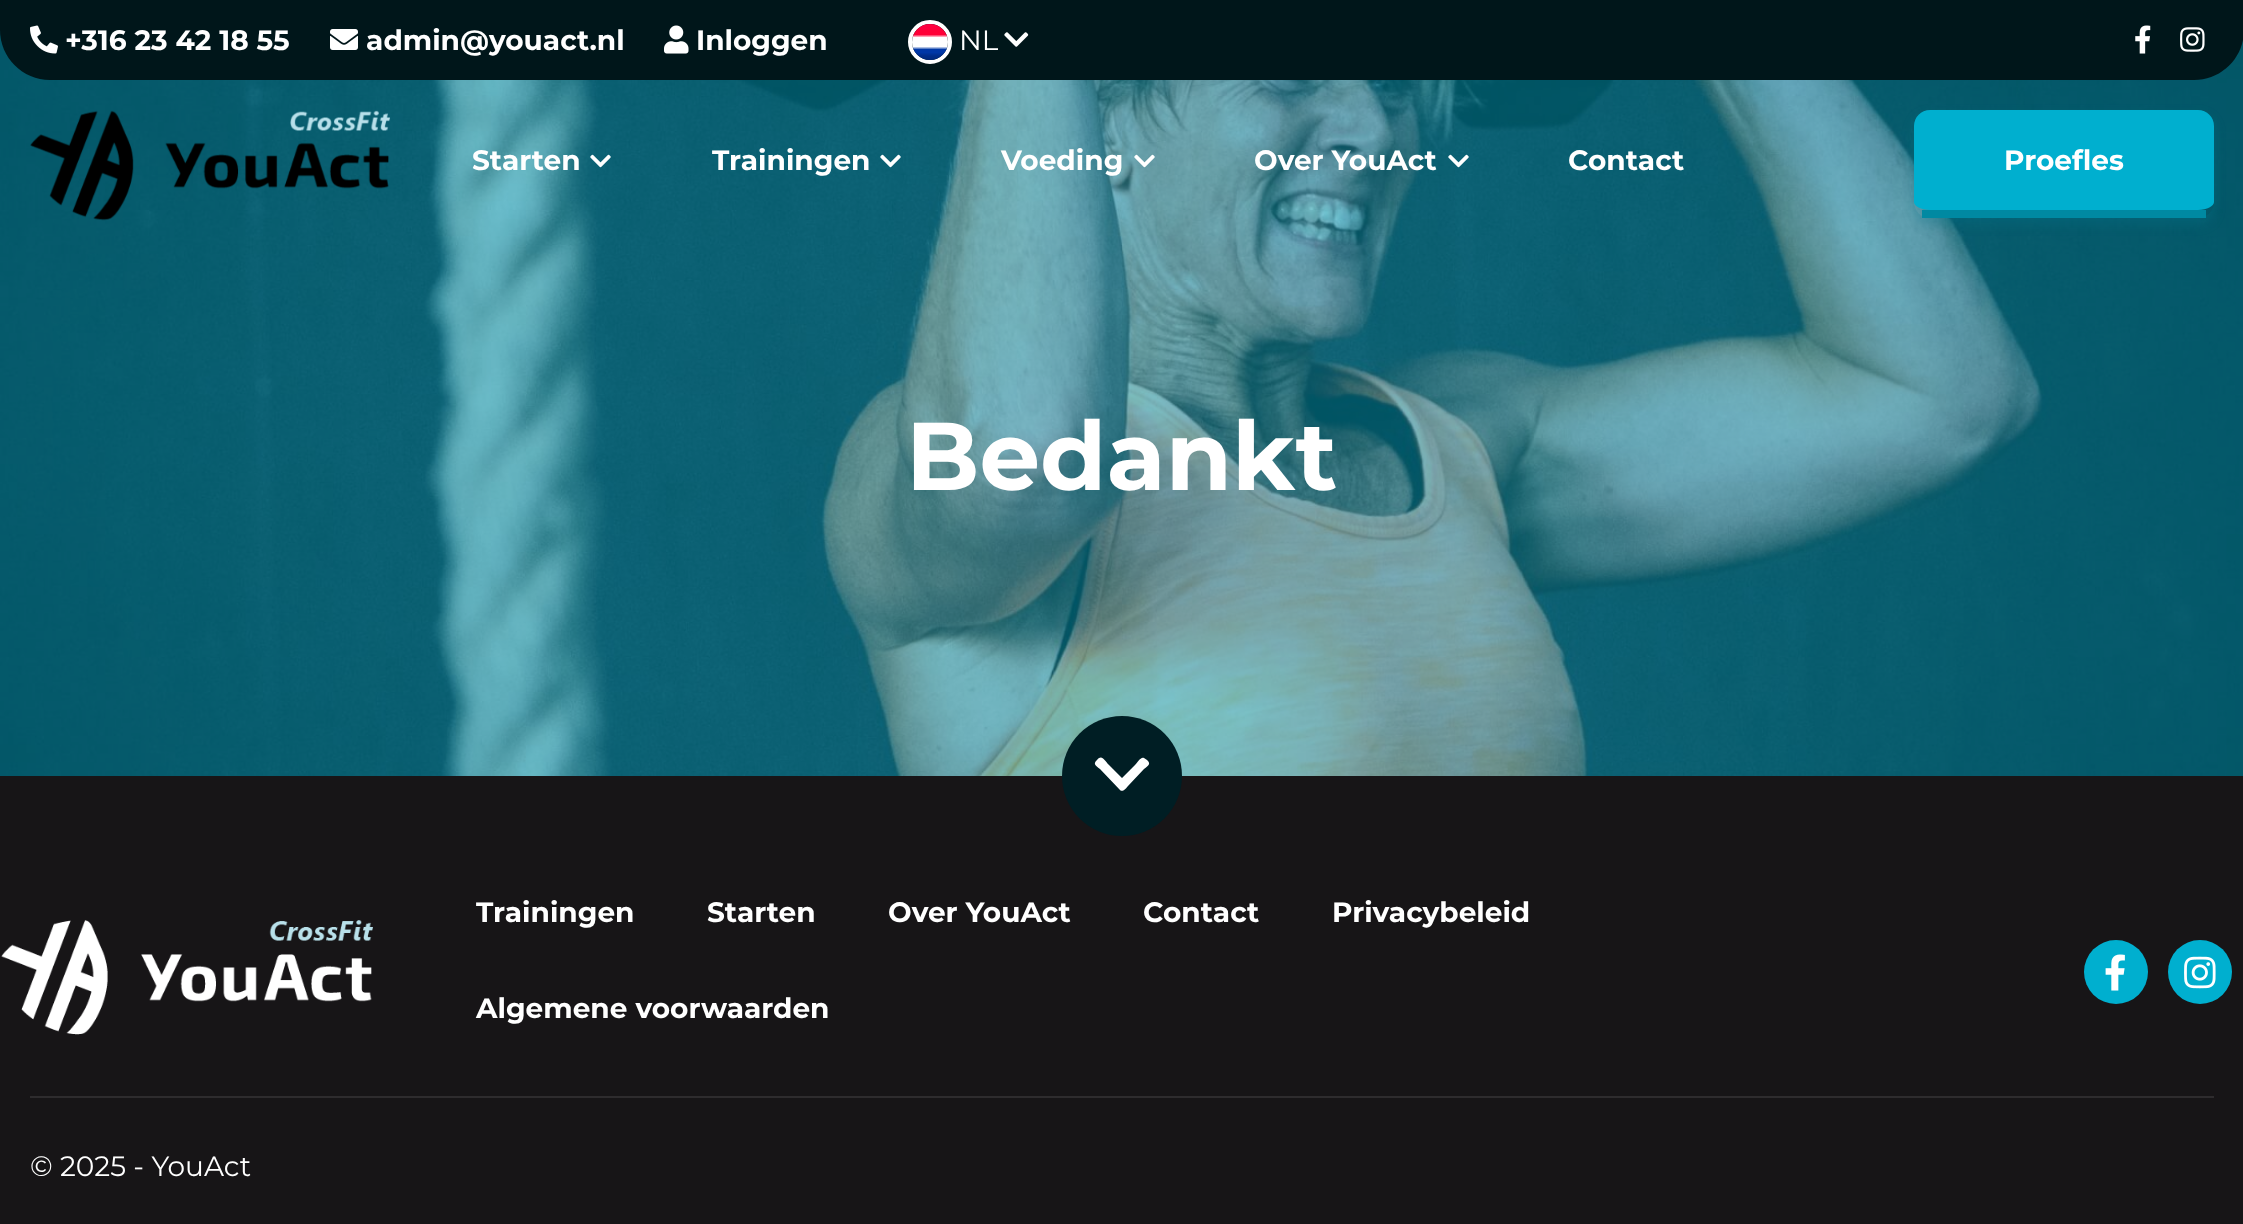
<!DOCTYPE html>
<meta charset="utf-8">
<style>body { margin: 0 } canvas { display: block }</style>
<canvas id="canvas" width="2243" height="1224"></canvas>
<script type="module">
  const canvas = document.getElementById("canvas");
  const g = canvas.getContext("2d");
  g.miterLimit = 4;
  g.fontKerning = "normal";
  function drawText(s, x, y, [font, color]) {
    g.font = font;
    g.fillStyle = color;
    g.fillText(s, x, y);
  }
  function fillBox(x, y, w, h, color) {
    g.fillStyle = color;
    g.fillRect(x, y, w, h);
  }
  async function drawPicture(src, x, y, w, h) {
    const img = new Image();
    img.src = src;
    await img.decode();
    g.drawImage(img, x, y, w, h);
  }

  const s1 = ["bold 28px Montserrat", "#FFFFFF"];
  const s2 = ["28px Montserrat", "#FFFFFF"];
  const s3 = ["bold 96px Montserrat", "#FFFFFF"];

  fillBox(0, 0, 2243, 1224, "#171517");
  await drawPicture("pic13.png", 0, 30, 2243, 746);
  g.fillStyle = "#00161A";
  g.beginPath();
  g.moveTo(0, 0);
  g.lineTo(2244, 0);
  g.lineTo(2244, 30);
  g.bezierCurveTo(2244, 57.5, 2221.5, 80, 2194, 80);
  g.lineTo(50, 80);
  g.bezierCurveTo(22.5, 80, 0, 57.5, 0, 30);
  g.closePath();
  g.fill();
  await drawPicture("pic1.png", 30, 25, 28, 29);
  drawText("+316 23 42 18 55", 65, 50, s1);
  await drawPicture("pic2.png", 330, 29, 28, 21);
  drawText("admin@youact.nl", 366, 50, s1);
  await drawPicture("pic3.png", 664, 25, 25, 29);
  drawText("Inloggen", 696, 50, s1);
  g.beginPath();
  g.arc(930, 42, 20, 0, Math.PI * 2);
  g.strokeStyle = "#FFFFFF";
  g.lineWidth = 4;
  g.stroke();
  await drawPicture("pic4.png", 912, 24, 36, 36);
  drawText("NL", 959, 50, s2);
  await drawPicture("pic5.png", 1004, 32, 25, 15);
  await drawPicture("pic6.png", 2135, 25, 16, 29);
  await drawPicture("pic7.png", 2180, 27, 25, 25);
  await drawPicture("pic8.png", 30, 110, 360, 111);
  drawText("Starten", 472, 170, s1);
  await drawPicture("pic9.png", 590, 154, 21, 14);
  drawText("Trainingen", 712, 170, s1);
  await drawPicture("pic10.png", 880, 154, 21, 14);
  drawText("Voeding", 1001, 170, s1);
  await drawPicture("pic11.png", 1134, 154, 21, 14);
  drawText("Over YouAct", 1254, 170, s1);
  await drawPicture("pic12.png", 1448, 154, 21, 14);
  drawText("Contact", 1568, 170, s1);
  g.save();
  g.beginPath();
  g.moveTo(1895, 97);
  g.lineTo(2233, 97);
  g.lineTo(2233, 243);
  g.lineTo(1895, 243);
  g.closePath();
  g.moveTo(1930, 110);
  g.lineTo(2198, 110);
  g.bezierCurveTo(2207, 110, 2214, 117, 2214, 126);
  g.lineTo(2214, 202);
  g.bezierCurveTo(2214, 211, 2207, 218, 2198, 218);
  g.lineTo(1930, 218);
  g.bezierCurveTo(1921, 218, 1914, 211, 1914, 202);
  g.lineTo(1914, 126);
  g.bezierCurveTo(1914, 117, 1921, 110, 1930, 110);
  g.closePath();
  g.clip("evenodd");
  g.fillStyle = "rgba(0, 124, 147, 0.26)";
  g.filter = "blur(6px)";
  g.beginPath();
  g.roundRect(1914, 116, 300, 108, 16);
  g.fill();
  g.filter = "none";
  g.restore();
  g.fillStyle = "#00AFCF";
  g.beginPath();
  g.moveTo(1930, 110);
  g.lineTo(2198, 110);
  g.bezierCurveTo(2207, 110, 2214, 117, 2214, 126);
  g.lineTo(2214, 202);
  g.bezierCurveTo(2214, 206, 2207, 210, 2198, 210);
  g.lineTo(1930, 210);
  g.bezierCurveTo(1921, 210, 1914, 206, 1914, 202);
  g.lineTo(1914, 126);
  g.bezierCurveTo(1914, 117, 1921, 110, 1930, 110);
  g.closePath();
  g.fill();
  fillBox(1922, 210, 284, 8, "#0089A2");
  drawText("Proefles", 2004, 170, s1);
  drawText("Bedankt", 906, 490, s3);
  g.fillStyle = "#001E24";
  g.beginPath();
  g.arc(1122, 776, 60, 0, Math.PI * 2);
  g.fill();
  g.fillStyle = "#FFFFFF";
  g.beginPath();
  g.moveTo(1120, 790);
  g.lineTo(1100, 769);
  g.bezierCurveTo(1095, 765, 1093, 764, 1097, 760);
  g.bezierCurveTo(1102, 754, 1104, 760, 1109, 765);
  g.lineTo(1122, 778);
  g.lineTo(1135, 765);
  g.bezierCurveTo(1137, 763, 1141, 756, 1144, 758);
  g.lineTo(1147, 760);
  g.bezierCurveTo(1151, 764, 1149, 765, 1144, 769);
  g.lineTo(1128, 786);
  g.bezierCurveTo(1127, 787, 1123, 793, 1120, 790);
  g.closePath();
  g.fill();
  await drawPicture("pic14.png", 1, 920, 372, 115);
  drawText("Trainingen", 476, 922, s1);
  drawText("Starten", 707, 922, s1);
  drawText("Over YouAct", 888, 922, s1);
  drawText("Contact", 1143, 922, s1);
  drawText("Privacybeleid", 1332, 922, s1);
  drawText("Algemene voorwaarden", 476, 1018, s1);
  g.fillStyle = "#00AFCF";
  g.beginPath();
  g.arc(2116, 972, 32, 0, Math.PI * 2);
  g.fill();
  await drawPicture("pic15.png", 2105, 954, 20, 37);
  g.beginPath();
  g.arc(2200, 972, 32, 0, Math.PI * 2);
  g.fill();
  await drawPicture("pic16.png", 2184, 956, 32, 33);
  fillBox(30, 1096, 2184, 2, "#2E2C2E");
  drawText("© 2025 - YouAct", 30, 1176, s2);
</script>
